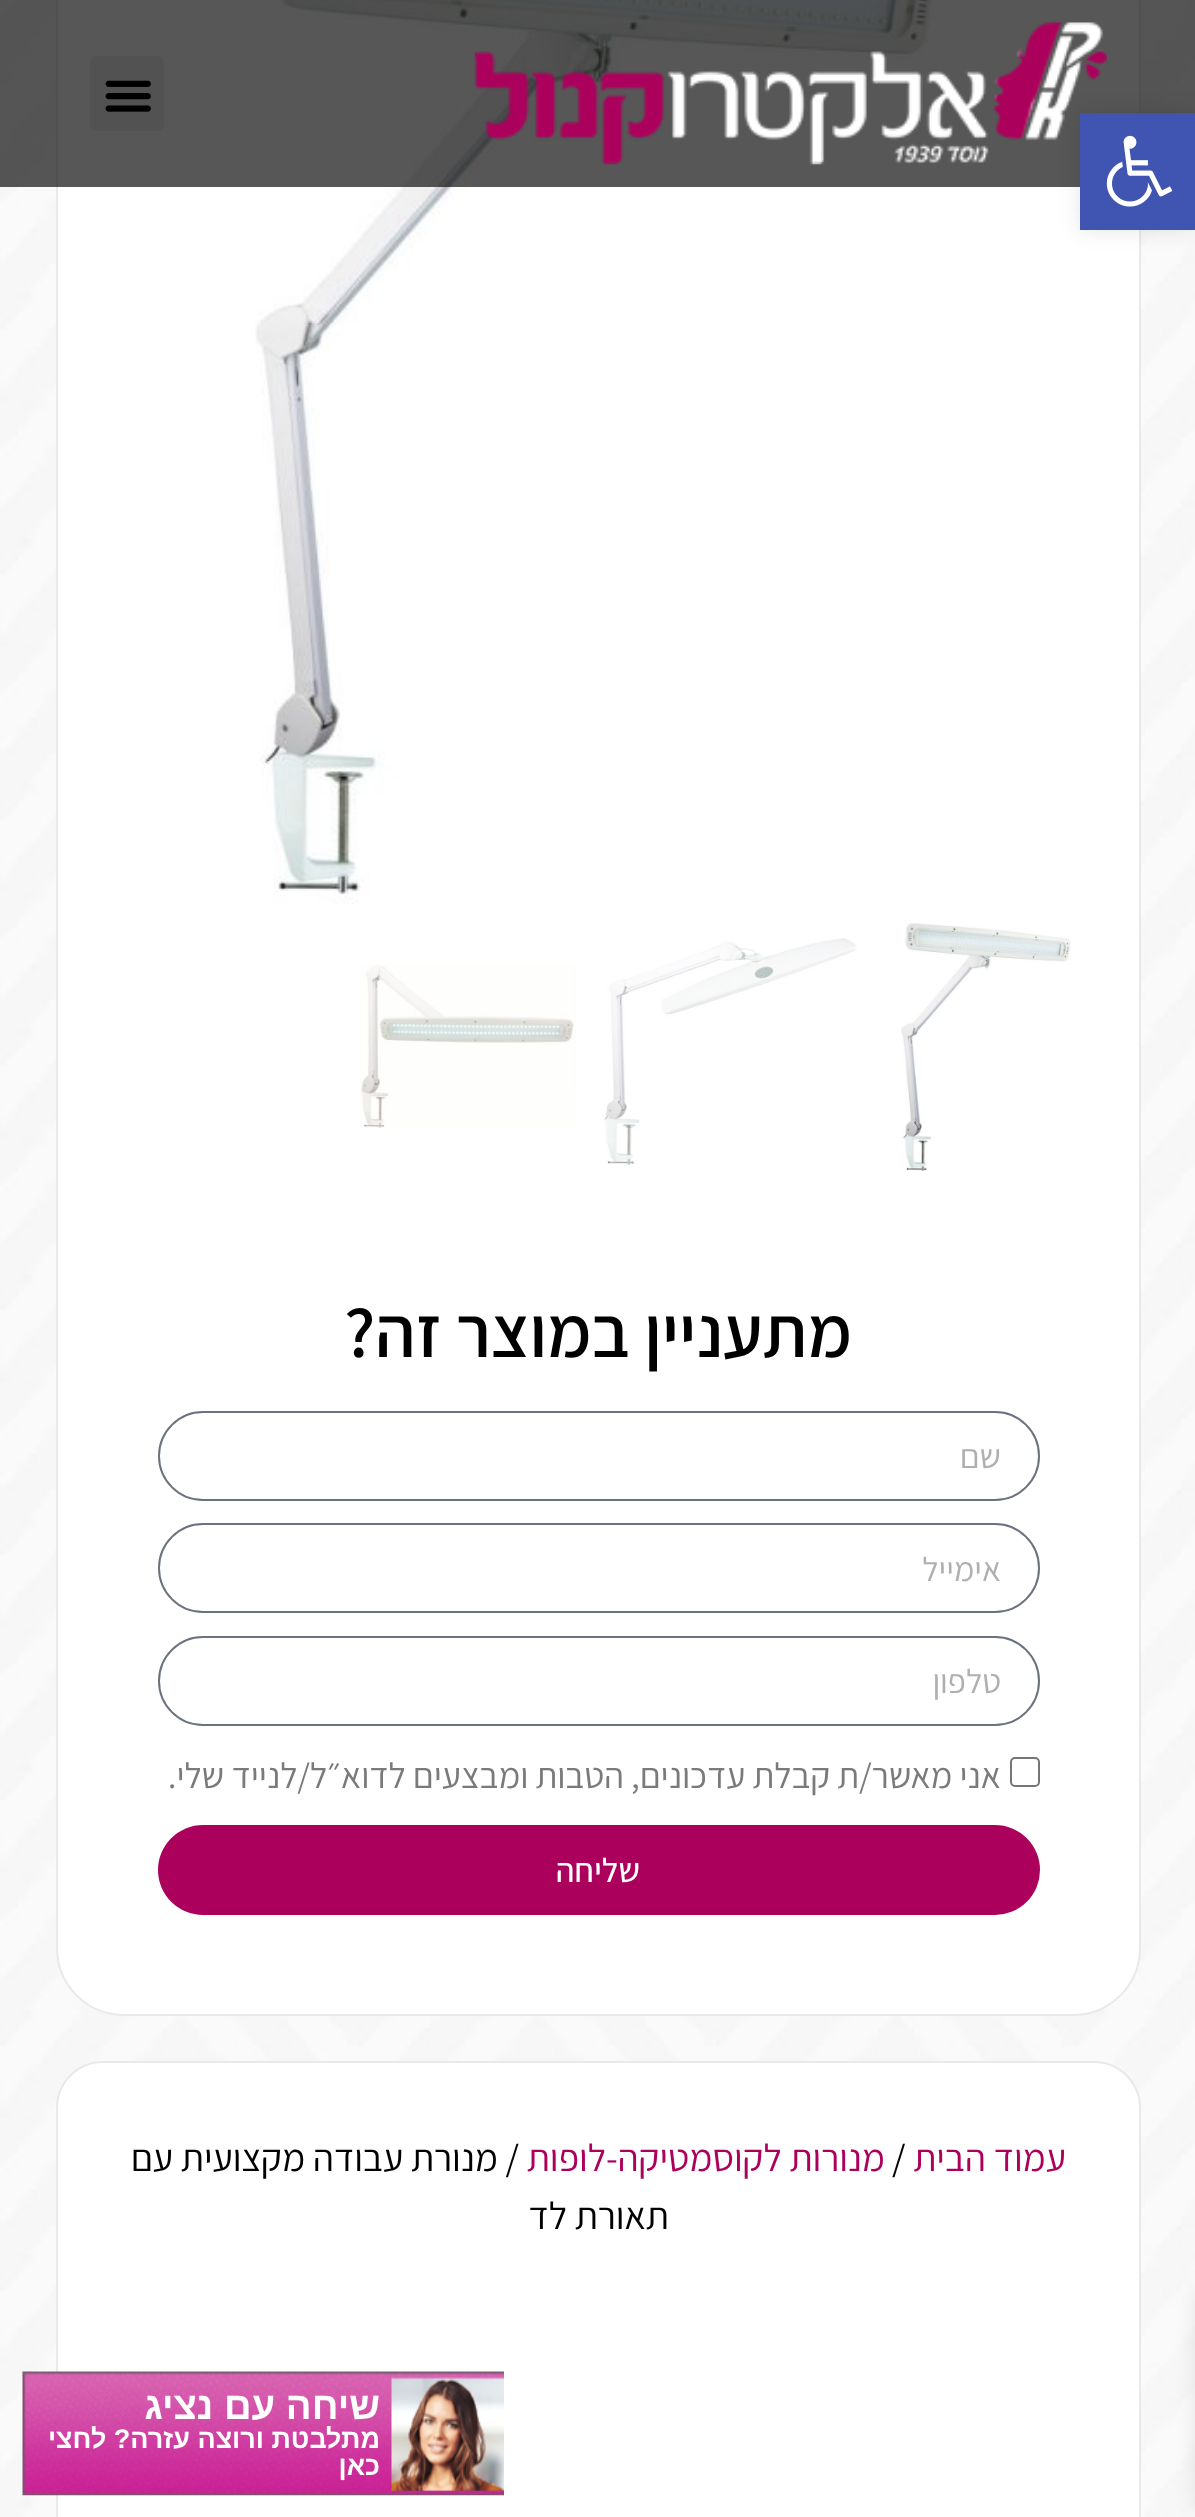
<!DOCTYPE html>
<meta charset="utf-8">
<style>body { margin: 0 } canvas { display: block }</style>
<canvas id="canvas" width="1195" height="2517"></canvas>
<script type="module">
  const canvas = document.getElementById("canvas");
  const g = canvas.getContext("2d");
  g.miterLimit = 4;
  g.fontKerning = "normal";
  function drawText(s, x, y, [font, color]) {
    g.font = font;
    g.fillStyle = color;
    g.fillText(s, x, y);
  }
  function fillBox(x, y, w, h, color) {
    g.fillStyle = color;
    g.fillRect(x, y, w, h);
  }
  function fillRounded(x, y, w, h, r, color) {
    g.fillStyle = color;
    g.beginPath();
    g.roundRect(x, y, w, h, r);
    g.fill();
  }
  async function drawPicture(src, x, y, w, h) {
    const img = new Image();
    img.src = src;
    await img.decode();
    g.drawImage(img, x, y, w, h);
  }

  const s1 = ["600 72px Assistant", "#000000"];
  const s2 = ["34px Assistant", "#AFAFAF"];
  const s3 = ["36px Assistant", "#7A7A7A"];
  const s4 = ["500 34px Assistant", "#FFFFFF"];
  const s5 = ["38.25px Assistant", "#AC005D"];
  const s6 = ["38.25px Assistant", "#000000"];
  const s7 = ["bold 38.25px Liberation Sans", "#FFFFFF"];
  const s8 = ["bold 27px Liberation Sans", "#FFFFFF"];

  fillBox(0, 0, 1195, 2517, "#FFFFFF");
  await drawPicture("pic4.png", 0, 0, 1195, 2517);
  g.beginPath();
  g.roundRect(57, -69, 1083, 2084, 67);
  g.fill();
  g.strokeStyle = "#E9E9E9";
  g.lineWidth = 2;
  g.stroke();
  await drawPicture("pic5.png", 255, 0, 681, 904);
  fillBox(0, 0, 1195, 187, "rgba(0, 0, 0, 0.66)");
  await drawPicture("pic1.png", 474, 22, 633, 143);
  fillRounded(90, 56, 74, 75, 7, "#525252");
  await drawPicture("pic2.png", 105, 80, 46, 32);
  g.fillStyle = "rgba(0, 0, 0, 0.1)";
  g.filter = "blur(11px)";
  g.beginPath();
  g.rect(1080, 113, 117, 117);
  g.fill();
  g.filter = "none";
  fillBox(1080, 113, 115, 117, "#4054B2");
  await drawPicture("pic3.png", 1106, 135, 67, 72);
  await drawPicture("pic6.png", 901, 923, 170, 248);
  await drawPicture("pic7.png", 604, 938, 253, 227);
  await drawPicture("pic8.png", 360, 964, 216, 164);
  g.direction = "rtl";
  drawText("מתעניין במוצר זה?", 852, 1357, s1);
  g.beginPath();
  g.roundRect(159, 1412, 880, 88, 44);
  g.strokeStyle = "#69727D";
  g.stroke();
  drawText("שם", 1001, 1468, s2);
  g.beginPath();
  g.roundRect(159, 1524, 880, 88, 44);
  g.stroke();
  drawText("אימייל", 1001, 1581, s2);
  g.beginPath();
  g.roundRect(159, 1637, 880, 88, 44);
  g.stroke();
  drawText("טלפון", 1001, 1693, s2);
  g.beginPath();
  g.roundRect(1011, 1758, 28, 28, 4);
  g.strokeStyle = "#767676";
  g.stroke();
  drawText("אני מאשר/ת קבלת עדכונים, הטבות ומבצעים לדוא״ל/לנייד שלי.", 1001, 1788, s3);
  fillRounded(158, 1825, 882, 90, 45, "#AC005D");
  drawText("שליחה", 640, 1882, s4);
  g.beginPath();
  g.roundRect(57, 2062, 1083, 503, 46);
  g.fill();
  g.strokeStyle = "#E9E9E9";
  g.stroke();
  drawText("עמוד הבית", 1066, 2171, s5);
  g.direction = "ltr";
  drawText("/", 892, 2171, s6);
  g.direction = "rtl";
  drawText("מנורות לקוסמטיקה-לופות", 885, 2171, s5);
  drawText("/ מנורת עבודה מקצועית עם", 519, 2171, s6);
  drawText("תאורת לד", 669, 2229, s6);
  g.fillStyle = "rgba(0, 0, 0, 0.1)";
  g.filter = "blur(11px)";
  g.beginPath();
  g.rect(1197, 2288, 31, 219);
  g.fill();
  g.filter = "none";
  await drawPicture("pic9.png", 22, 2371, 482, 125);
  await drawPicture("pic10.png", 391, 2377, 113, 114);
  drawText("שיחה עם נציג", 380, 2419, s7);
  drawText("מתלבטת ורוצה עזרה? לחצי", 380, 2448, s8);
  drawText("כאן", 380, 2475, s8);
</script>
